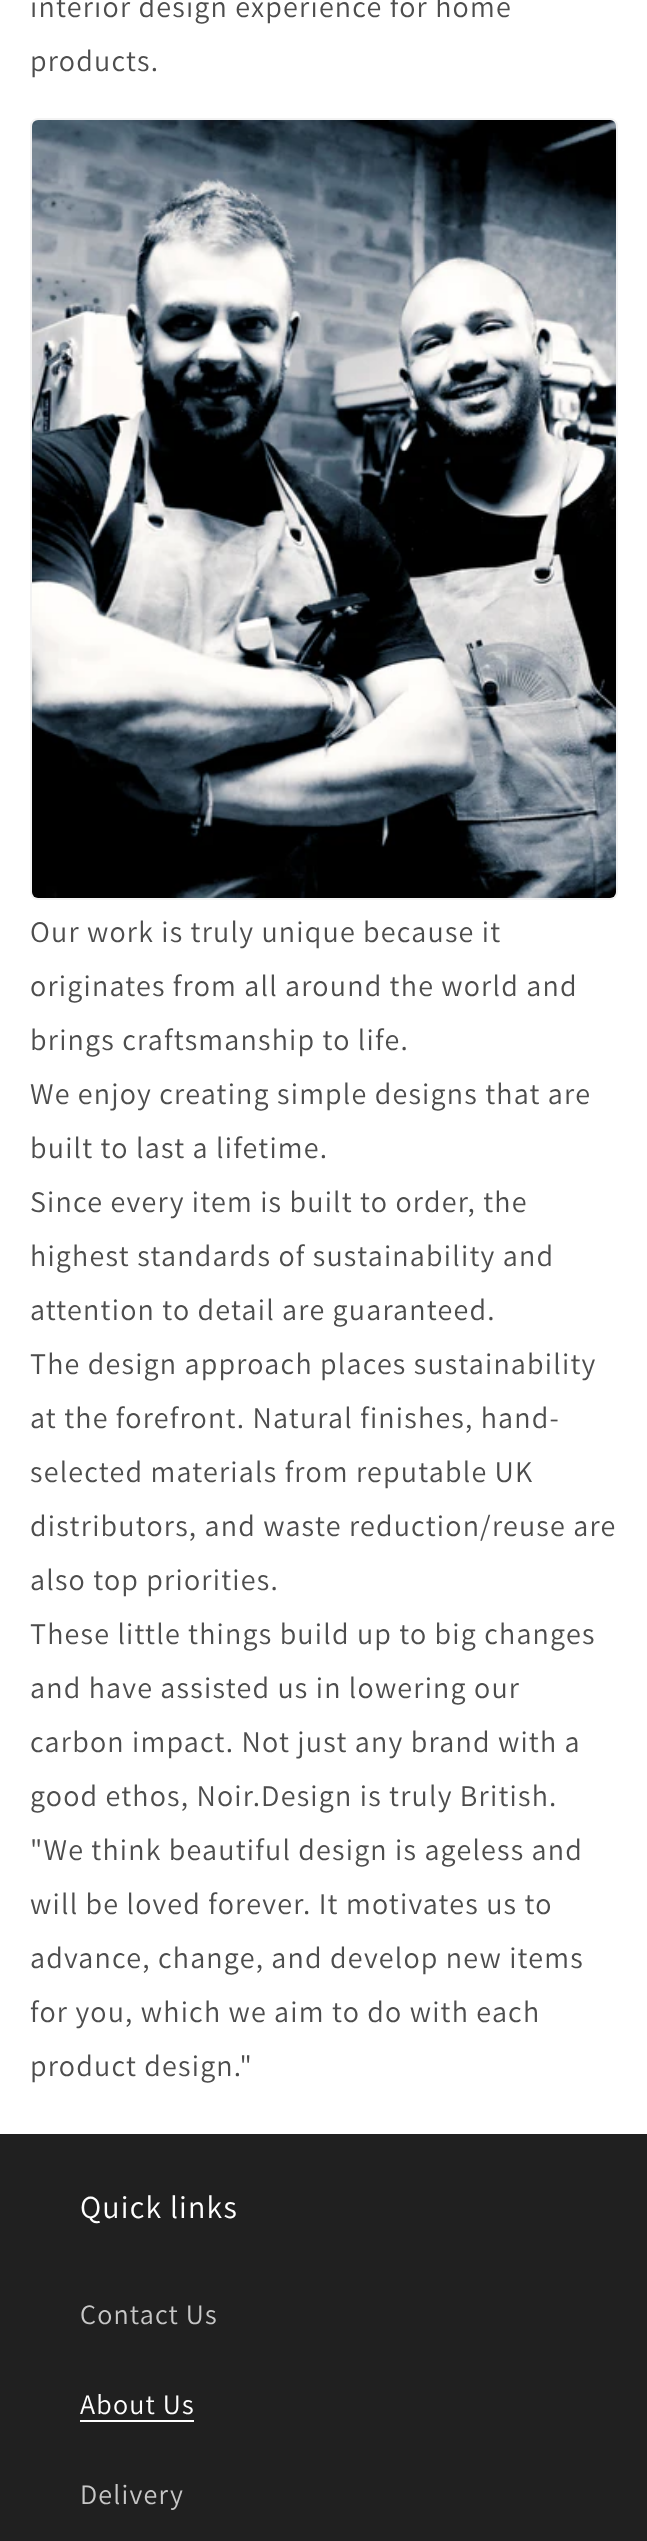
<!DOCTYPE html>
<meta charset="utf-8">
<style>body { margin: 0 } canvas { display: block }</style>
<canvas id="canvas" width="647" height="2541"></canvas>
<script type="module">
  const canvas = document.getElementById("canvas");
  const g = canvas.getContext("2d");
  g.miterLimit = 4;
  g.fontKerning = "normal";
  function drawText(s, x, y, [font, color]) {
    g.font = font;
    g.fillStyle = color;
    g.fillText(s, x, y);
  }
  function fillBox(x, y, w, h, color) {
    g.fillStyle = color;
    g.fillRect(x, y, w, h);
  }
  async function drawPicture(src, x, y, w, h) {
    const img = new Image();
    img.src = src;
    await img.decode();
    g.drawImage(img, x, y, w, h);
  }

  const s1 = ["30px Assistant", "#4D4D4D"];
  const s2 = ["32px Assistant", "#FFFFFF"];
  const s3 = ["28px Assistant", "#C7C7C7"];
  const s4 = ["28px Assistant", "#FFFFFF"];

  fillBox(0, 0, 647, 2541, "#FFFFFF");
  g.letterSpacing = "1.2px";
  drawText("interior design experience for home", 30, 17, s1);
  drawText("products.", 30, 71, s1);
  g.beginPath();
  g.roundRect(31, 119, 586, 780, 7);
  g.strokeStyle = "#F3F3F3";
  g.lineWidth = 2;
  g.stroke();
  await drawPicture("pic1.png", 32, 120, 584, 778);
  drawText("Our work is truly unique because it", 30, 942, s1);
  drawText("originates from all around the world and", 30, 996, s1);
  drawText("brings craftsmanship to life.", 30, 1050, s1);
  drawText("We enjoy creating simple designs that are", 30, 1104, s1);
  drawText("built to last a lifetime.", 30, 1158, s1);
  drawText("Since every item is built to order, the", 30, 1212, s1);
  drawText("highest standards of sustainability and", 30, 1266, s1);
  drawText("attention to detail are guaranteed.", 30, 1320, s1);
  drawText("The design approach places sustainability", 30, 1374, s1);
  drawText("at the forefront. Natural finishes, hand-", 30, 1428, s1);
  drawText("selected materials from reputable UK", 30, 1482, s1);
  drawText("distributors, and waste reduction/reuse are", 30, 1536, s1);
  drawText("also top priorities.", 30, 1590, s1);
  drawText("These little things build up to big changes", 30, 1644, s1);
  drawText("and have assisted us in lowering our", 30, 1698, s1);
  drawText("carbon impact. Not just any brand with a", 30, 1752, s1);
  drawText("good ethos, Noir.Design is truly British.", 30, 1806, s1);
  drawText("\"We think beautiful design is ageless and", 30, 1860, s1);
  drawText("will be loved forever. It motivates us to", 30, 1914, s1);
  drawText("advance, change, and develop new items", 30, 1968, s1);
  drawText("for you, which we aim to do with each", 30, 2022, s1);
  drawText("product design.\"", 30, 2076, s1);
  fillBox(0, 2134, 647, 407, "#202020");
  drawText("Quick links", 80, 2218, s2);
  drawText("Contact Us", 80, 2324, s3);
  drawText("About Us", 80, 2414, s4);
  fillBox(80, 2420, 114, 2, "#FFFFFF");
  drawText("Delivery", 80, 2504, s3);
</script>
